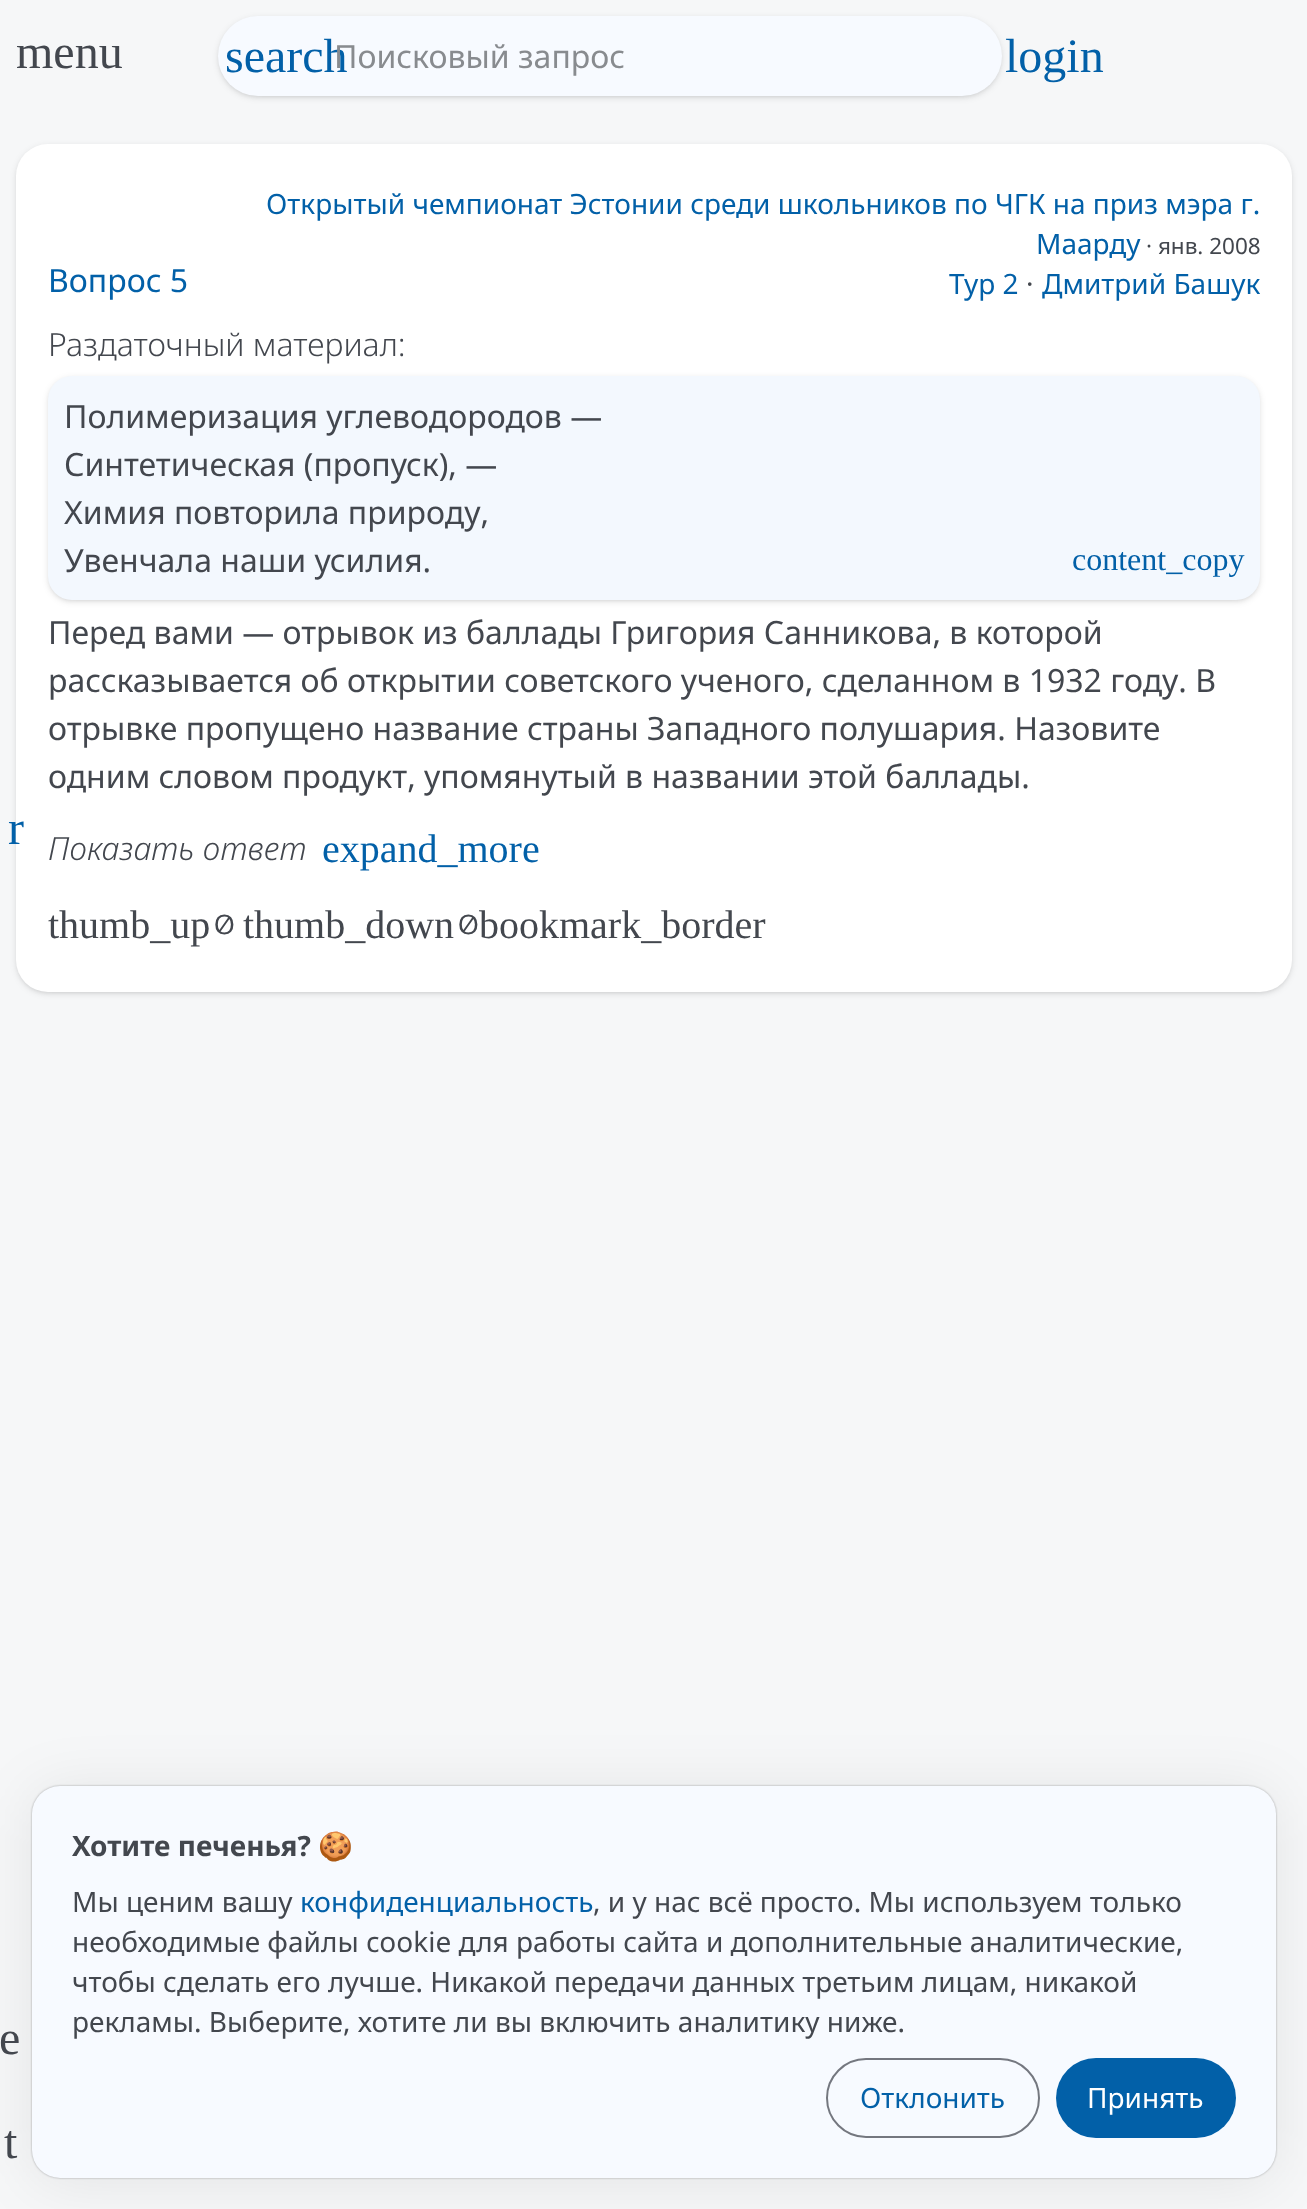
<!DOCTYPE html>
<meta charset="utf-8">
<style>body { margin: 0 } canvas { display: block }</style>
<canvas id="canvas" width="1307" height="2209"></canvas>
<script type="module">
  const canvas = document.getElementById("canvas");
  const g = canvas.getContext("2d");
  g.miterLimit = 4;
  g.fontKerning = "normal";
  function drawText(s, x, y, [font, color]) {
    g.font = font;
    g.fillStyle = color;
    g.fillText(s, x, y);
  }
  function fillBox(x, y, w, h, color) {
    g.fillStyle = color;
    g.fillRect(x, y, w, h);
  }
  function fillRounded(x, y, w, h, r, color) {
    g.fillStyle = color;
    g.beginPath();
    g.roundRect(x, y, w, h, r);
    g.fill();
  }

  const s1 = ["48px Liberation Serif", "#0260A8"];
  const s2 = ["32px Noto Sans", "#888B8F"];
  const s3 = ["32px Noto Sans", "#0260A8"];
  const s4 = ["28px Noto Sans", "#0260A8"];
  const s5 = ["22.5px Noto Sans", "#43474E"];
  const s6 = ["28px Noto Sans", "#43474E"];
  const s7 = ["300 32px Noto Sans", "#43474E"];
  const s8 = ["32px Noto Sans", "#43474E"];
  const s9 = ["32px Liberation Serif", "#0260A8"];
  const s10 = ["italic 300 32px Noto Sans", "#43474E"];
  const s11 = ["40px Liberation Serif", "#0260A8"];
  const s12 = ["40px Liberation Serif", "#43474E"];
  const s13 = ["300 28px Mitr", "#43474E"];
  const s14 = ["48px Liberation Serif", "#43474E"];
  const s15 = ["bold 28px Noto Sans", "#43474E"];
  const s16 = ["bold 28px Noto Color Emoji", "#43474E"];
  const s17 = ["28px Noto Sans", "#FFFFFF"];

  fillBox(0, 0, 1307, 2209, "#F6F7F8");
  g.fillStyle = "rgba(0, 0, 0, 0.1)";
  g.filter = "blur(2px)";
  g.beginPath();
  g.roundRect(220, 20, 780, 76, 38);
  g.fill();
  g.filter = "none";
  g.filter = "blur(3px)";
  g.beginPath();
  g.roundRect(218, 18, 784, 80, 40);
  g.fill();
  g.filter = "none";
  fillRounded(218, 16, 784, 80, 40, "#F7FAFF");
  drawText("search", 225, 72, s1);
  drawText("Поисковый запрос", 334, 68, s2);
  drawText("login", 1005, 72, s1);
  g.fillStyle = "rgba(0, 0, 0, 0.1)";
  g.filter = "blur(2px)";
  g.beginPath();
  g.roundRect(18, 148, 1272, 844, 30);
  g.fill();
  g.filter = "none";
  g.filter = "blur(3px)";
  g.beginPath();
  g.roundRect(16, 146, 1276, 848, 32);
  g.fill();
  g.filter = "none";
  fillRounded(16, 144, 1276, 848, 32, "#FFFFFF");
  drawText("Вопрос 5", 48, 292, s3);
  drawText("Открытый чемпионат Эстонии среди школьников по ЧГК на приз мэра г.", 266, 214, s4);
  drawText("Маарду", 1036, 254, s4);
  drawText("· янв. 2008", 1146, 254, s5);
  drawText("Тур 2", 949, 294, s4);
  drawText("·", 1026, 294, s6);
  drawText("Дмитрий Башук", 1042, 294, s4);
  drawText("Раздаточный материал:", 48, 356, s7);
  g.fillStyle = "rgba(0, 0, 0, 0.1)";
  g.filter = "blur(2px)";
  g.beginPath();
  g.roundRect(50, 380, 1208, 220, 22);
  g.fill();
  g.filter = "none";
  g.filter = "blur(3px)";
  g.beginPath();
  g.roundRect(48, 378, 1212, 224, 24);
  g.fill();
  g.filter = "none";
  fillRounded(48, 376, 1212, 224, 24, "#F3F8FE");
  drawText("Полимеризация углеводородов —", 64, 428, s8);
  drawText("Синтетическая (пропуск), —", 64, 476, s8);
  drawText("Химия повторила природу,", 64, 524, s8);
  drawText("Увенчала наши усилия.", 64, 572, s8);
  drawText("content_copy", 1072, 570, s9);
  drawText("Перед вами — отрывок из баллады Григория Санникова, в которой", 48, 644, s8);
  drawText("рассказывается об открытии советского ученого, сделанном в 1932 году. В", 48, 692, s8);
  drawText("отрывке пропущено название страны Западного полушария. Назовите", 48, 740, s8);
  drawText("одним словом продукт, упомянутый в названии этой баллады.", 48, 788, s8);
  drawText("Показать ответ", 48, 860, s10);
  drawText("expand_more", 322, 862, s11);
  drawText("thumb_up", 48, 938, s12);
  drawText("0", 214, 934, s13);
  drawText("thumb_down", 243, 938, s12);
  drawText("0", 458, 934, s13);
  drawText("bookmark_border", 479, 938, s12);
  drawText("menu", 16, 68, s14);
  drawText("r", 8, 844, s1);
  g.fillStyle = "rgba(0, 0, 0, 0.08)";
  g.filter = "blur(30px)";
  g.beginPath();
  g.roundRect(32, 1790, 1244, 392, 28);
  g.fill();
  g.filter = "none";
  drawText("e", -1, 2054, s14);
  drawText("t", 4, 2158, s14);
  g.fillStyle = "rgba(0, 0, 0, 0.3)";
  g.filter = "blur(1px)";
  g.beginPath();
  g.roundRect(32, 1786, 1244, 392, 28);
  g.fill();
  g.filter = "none";
  fillRounded(32, 1786, 1244, 392, 28, "#F7FAFF");
  drawText("Хотите печенья?", 72, 1856, s15);
  drawText("🍪", 318, 1856, s16);
  drawText("Мы ценим вашу", 72, 1912, s6);
  drawText("конфиденциальность", 300, 1912, s4);
  drawText(", и у нас всё просто. Мы используем только", 593, 1912, s6);
  drawText("необходимые файлы cookie для работы сайта и дополнительные аналитические,", 72, 1952, s6);
  drawText("чтобы сделать его лучше. Никакой передачи данных третьим лицам, никакой", 72, 1992, s6);
  drawText("рекламы. Выберите, хотите ли вы включить аналитику ниже.", 72, 2032, s6);
  g.beginPath();
  g.roundRect(827, 2059, 212, 78, 39);
  g.strokeStyle = "#74777F";
  g.lineWidth = 2;
  g.stroke();
  drawText("Отклонить", 860, 2108, s4);
  fillRounded(1056, 2058, 180, 80, 40, "#0260A8");
  drawText("Принять", 1087, 2108, s17);
</script>
